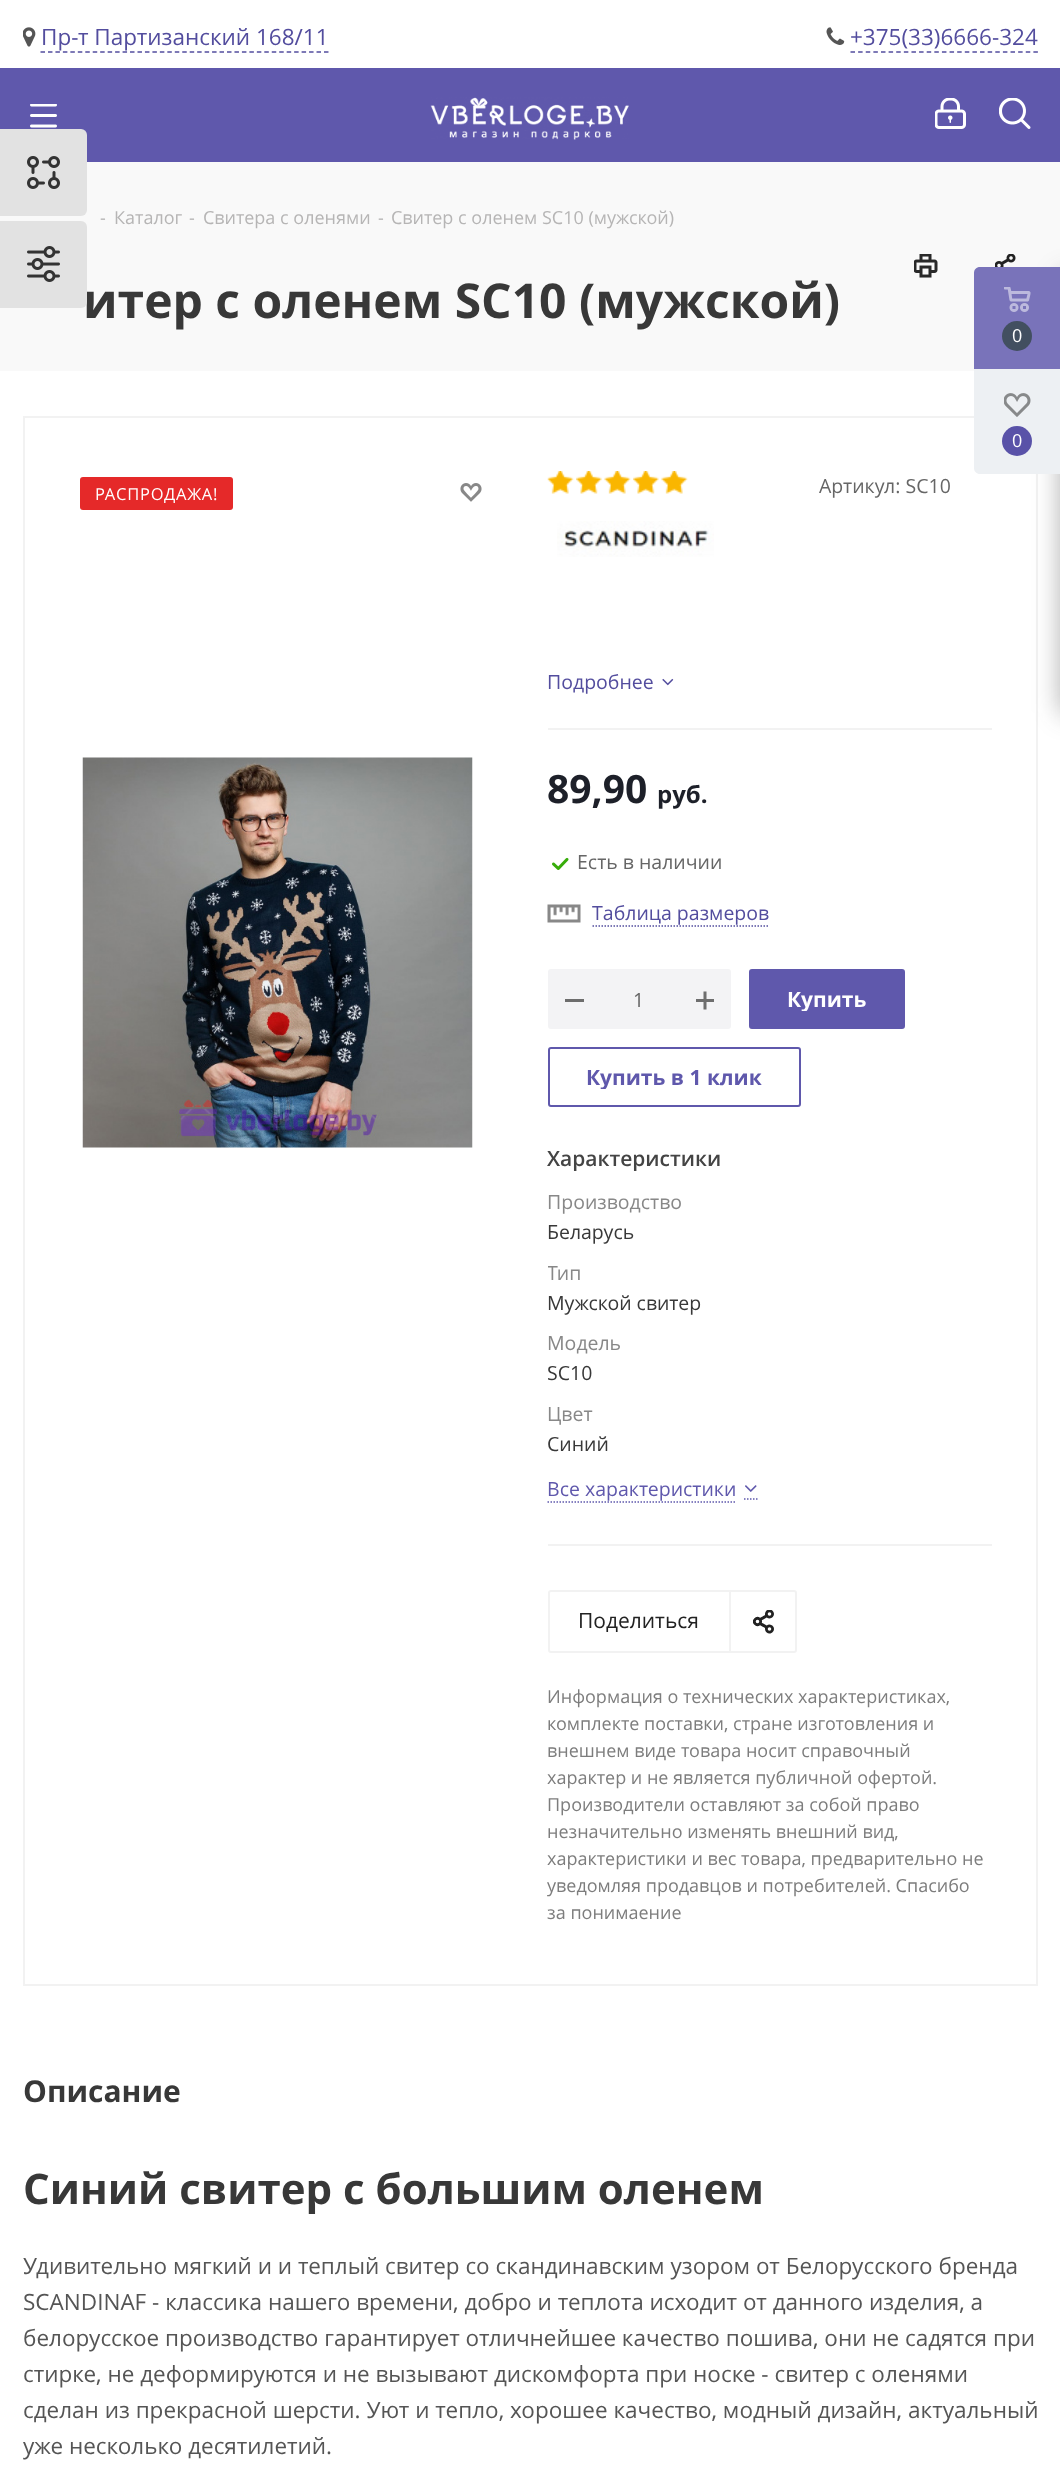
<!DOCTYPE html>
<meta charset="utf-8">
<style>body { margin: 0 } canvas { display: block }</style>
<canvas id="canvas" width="1060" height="2466"></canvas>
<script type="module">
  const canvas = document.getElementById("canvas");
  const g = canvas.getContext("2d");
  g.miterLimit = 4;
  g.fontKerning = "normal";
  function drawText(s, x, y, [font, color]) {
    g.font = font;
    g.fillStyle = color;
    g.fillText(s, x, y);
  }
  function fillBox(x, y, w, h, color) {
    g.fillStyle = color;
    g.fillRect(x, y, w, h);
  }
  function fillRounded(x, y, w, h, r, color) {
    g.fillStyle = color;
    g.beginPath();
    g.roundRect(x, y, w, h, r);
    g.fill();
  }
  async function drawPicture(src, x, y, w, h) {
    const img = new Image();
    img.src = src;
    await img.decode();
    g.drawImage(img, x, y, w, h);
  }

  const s1 = ["22.5px Open Sans", "#534D9E"];
  const s2 = ["18px Open Sans", "#B6B5B5"];
  const s3 = ["bold 48px Open Sans", "#383838"];
  const s4 = ["16.5px Open Sans", "#FFFFFF"];
  const s5 = ["19.5px Open Sans", "#666666"];
  const s6 = ["19.5px Open Sans", "#534D9E"];
  const s7 = ["bold 39px Open Sans", "#1D2029"];
  const s8 = ["bold 24px Open Sans", "#1D2029"];
  const s9 = ["bold 21px Open Sans", "#FFFFFF"];
  const s10 = ["bold 21px Open Sans", "#5F58AC"];
  const s11 = ["600 21px Open Sans", "#444444"];
  const s12 = ["19.5px Open Sans", "#888888"];
  const s13 = ["19.5px Open Sans", "#383838"];
  const s14 = ["19.5px Open Sans", "#5F58AC"];
  const s15 = ["21px Open Sans", "#222222"];
  const s16 = ["18px Open Sans", "#7D7D7D"];
  const s17 = ["bold 30px Open Sans", "#383838"];
  const s18 = ["bold 42px Open Sans", "#383838"];
  const s19 = ["22.5px Open Sans", "#555555"];
  const s20 = ["18px Open Sans", "#FFFFFF"];

  fillBox(0, 0, 1060, 2466, "#FFFFFF");
  await drawPicture("pic1.png", 23, 27, 13, 20);
  drawText("Пр-т Партизанский 168/11", 41, 45, s1);
  g.beginPath();
  g.moveTo(40.5, 52);
  g.lineTo(328.5, 52);
  g.strokeStyle = "#534D9E";
  g.lineWidth = 1.5;
  g.setLineDash([4.5, 2.96]);
  g.stroke();
  await drawPicture("pic2.png", 826, 27, 19, 18);
  drawText("+375(33)6666-324", 850, 45, s1);
  g.beginPath();
  g.moveTo(850.5, 52);
  g.lineTo(1038, 52);
  g.setLineDash([4.5, 3.12]);
  g.stroke();
  fillBox(0, 68, 1060, 94, "#5F58AC");
  await drawPicture("pic3.png", 30, 104, 27, 24);
  await drawPicture("pic4.png", 430, 97, 199, 43);
  await drawPicture("pic5.png", 935, 98, 31, 31);
  await drawPicture("pic6.png", 999, 98, 32, 31);
  fillBox(0, 162, 1060, 209, "#F9F9F9");
  drawText("-", 100, 224, s2);
  drawText("Каталог", 114, 224, s2);
  drawText("-", 189, 224, s2);
  drawText("Свитера с оленями", 203, 224, s2);
  drawText("-", 378, 224, s2);
  drawText("Свитер с оленем SC10 (мужской)", 391, 224, s2);
  await drawPicture("pic7.png", 914, 254, 24, 24);
  await drawPicture("pic8.png", 995, 254, 21, 13);
  drawText("итер с оленем SC10 (мужской)", 83, 318, s3);
  g.strokeStyle = "#F2F2F2";
  g.lineWidth = 2;
  g.setLineDash([]);
  g.strokeRect(24, 417, 1013, 1568);
  await drawPicture("pic9.png", 460, 483, 22, 19);
  await drawPicture("pic10.png", 82, 757, 391, 391);
  fillRounded(80, 477, 153, 33, 3, "#E52929");
  g.letterSpacing = "0.75px";
  drawText("РАСПРОДАЖА!", 95, 500, s4);
  fillBox(548, 728, 444, 2, "#F2F2F2");
  await drawPicture("pic11.png", 547, 471, 27, 23);
  await drawPicture("pic12.png", 576, 471, 26, 23);
  await drawPicture("pic13.png", 604, 471, 27, 23);
  await drawPicture("pic14.png", 633, 471, 26, 23);
  await drawPicture("pic13.png", 661, 471, 27, 23);
  g.letterSpacing = "0px";
  drawText("Артикул: SC10", 819, 493, s5);
  await drawPicture("pic15.png", 557, 521, 157, 36);
  drawText("Подробнее", 547, 689, s6);
  await drawPicture("pic16.png", 662, 678, 12, 8);
  drawText("89,90", 547, 803, s7);
  drawText("руб.", 657, 803, s8);
  await drawPicture("pic17.png", 552, 857, 17, 13);
  drawText("Есть в наличии", 577, 869, s5);
  await drawPicture("pic18.png", 547, 904, 34, 19);
  drawText("Таблица размеров", 592, 920, s6);
  g.beginPath();
  g.moveTo(592.5, 926);
  g.lineTo(769.5, 926);
  g.strokeStyle = "#534D9E";
  g.lineWidth = 1.5;
  g.setLineDash([1.5, 1.5]);
  g.stroke();
  g.fillStyle = "#F3F3F5";
  g.beginPath();
  g.roundRect(549, 970, 181, 58, 2);
  g.fill();
  g.strokeStyle = "#F3F3F5";
  g.lineWidth = 2;
  g.setLineDash([]);
  g.stroke();
  fillBox(565, 999, 19, 3, "#6D6D6D");
  drawText("1", 633, 1007, s5);
  await drawPicture("pic19.png", 696, 991, 18, 19);
  g.fillStyle = "#5F58AC";
  g.beginPath();
  g.roundRect(750, 970, 154, 58, 2);
  g.fill();
  g.strokeStyle = "#5F58AC";
  g.stroke();
  g.save();
  g.beginPath();
  g.rect(788, 987, 78, 24);
  g.clip();
  drawText("Купить", 787, 1007, s9);
  g.restore();
  g.beginPath();
  g.roundRect(549, 1048, 251, 58, 2);
  g.stroke();
  g.save();
  g.beginPath();
  g.rect(587, 1065, 175, 24);
  g.clip();
  drawText("Купить в 1 клик", 586, 1085, s10);
  g.restore();
  drawText("Характеристики", 547, 1166, s11);
  drawText("Производство", 547, 1209, s12);
  drawText("Беларусь", 547, 1239, s13);
  g.save();
  g.beginPath();
  g.rect(548, 1259, 444, 27);
  g.clip();
  drawText("Тип", 547, 1280, s12);
  g.restore();
  drawText("Мужской свитер", 547, 1310, s13);
  drawText("Модель", 547, 1350, s12);
  drawText("SC10", 547, 1380, s13);
  drawText("Цвет", 547, 1421, s12);
  drawText("Синий", 547, 1451, s13);
  g.beginPath();
  g.moveTo(744, 1499);
  g.lineTo(757.5, 1499);
  g.lineWidth = 1.5;
  g.setLineDash([1.5, 1.5]);
  g.stroke();
  g.beginPath();
  g.moveTo(547.5, 1502);
  g.lineTo(736.5, 1502);
  g.stroke();
  drawText("Все характеристики", 547, 1496, s14);
  await drawPicture("pic20.png", 745, 1485, 12, 7);
  fillBox(548, 1544, 444, 2, "#F2F2F2");
  fillBox(729, 1590, 2, 63, "#F2F2F2");
  await drawPicture("pic21.png", 753, 1610, 21, 24);
  g.beginPath();
  g.roundRect(549, 1591, 247, 61, 2);
  g.strokeStyle = "#F2F2F2";
  g.lineWidth = 2;
  g.setLineDash([]);
  g.stroke();
  drawText("Поделиться", 578, 1628, s15);
  drawText("Информация о технических характеристиках,", 547, 1703, s16);
  drawText("комплекте поставки, стране изготовления и", 547, 1730, s16);
  drawText("внешнем виде товара носит справочный", 547, 1757, s16);
  drawText("характер и не является публичной офертой.", 547, 1784, s16);
  drawText("Производители оставляют за собой право", 547, 1811, s16);
  drawText("незначительно изменять внешний вид,", 547, 1838, s16);
  drawText("характеристики и вес товара, предварительно не", 547, 1865, s16);
  drawText("уведомляя продавцов и потребителей. Спасибо", 547, 1892, s16);
  drawText("за понимаение", 547, 1919, s16);
  drawText("Описание", 23, 2102, s17);
  drawText("Синий свитер с большим оленем", 23, 2204, s18);
  drawText("Удивительно мягкий и и теплый свитер со скандинавским узором от Белорусского бренда", 23, 2274, s19);
  drawText("SCANDINAF - классика нашего времени, добро и теплота исходит от данного изделия, а", 23, 2310, s19);
  drawText("белорусское производство гарантирует отличнейшее качество пошива, они не садятся при", 23, 2346, s19);
  drawText("стирке, не деформируются и не вызывают дискомфорта при носке - свитер с оленями", 23, 2382, s19);
  drawText("сделан из прекрасной шерсти. Уют и тепло, хорошее качество, модный дизайн, актуальный", 23, 2418, s19);
  drawText("уже несколько десятилетий.", 23, 2454, s19);
  g.fillStyle = "#E2E2E2";
  g.beginPath();
  g.roundRect(0, 129, 87, 87, [0, 6, 6, 0]);
  g.fill();
  await drawPicture("pic22.png", 27, 156, 33, 33);
  g.beginPath();
  g.roundRect(0, 221, 87, 87, [0, 6, 6, 0]);
  g.fill();
  await drawPicture("pic23.png", 27, 246, 33, 36);
  g.fillStyle = "rgba(44, 44, 44, 0.4)";
  g.filter = "blur(13.5px)";
  g.beginPath();
  g.roundRect(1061, 276, 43, 437, 3);
  g.fill();
  g.filter = "none";
  g.fillStyle = "#EDF0F3";
  g.beginPath();
  g.moveTo(980, 267);
  g.lineTo(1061, 267);
  g.lineTo(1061, 474);
  g.lineTo(980, 474);
  g.bezierCurveTo(976.5, 474, 974, 471.5, 974, 468);
  g.lineTo(974, 273);
  g.bezierCurveTo(974, 269.5, 976.5, 267, 980, 267);
  g.closePath();
  g.fill();
  g.fillStyle = "#7973BA";
  g.beginPath();
  g.moveTo(980, 267);
  g.lineTo(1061, 267);
  g.lineTo(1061, 369);
  g.lineTo(974, 369);
  g.lineTo(974, 273);
  g.bezierCurveTo(974, 269.5, 976.5, 267, 980, 267);
  g.closePath();
  g.fill();
  await drawPicture("pic24.png", 1004, 287, 27, 25);
  g.fillStyle = "#424F60";
  g.beginPath();
  g.arc(1017, 336, 15, 0, Math.PI * 2);
  g.fill();
  drawText("0", 1012, 342, s20);
  await drawPicture("pic25.png", 1004, 393, 27, 24);
  g.fillStyle = "#5952A8";
  g.beginPath();
  g.arc(1017, 441, 15, 0, Math.PI * 2);
  g.fill();
  drawText("0", 1012, 447, s20);
</script>
